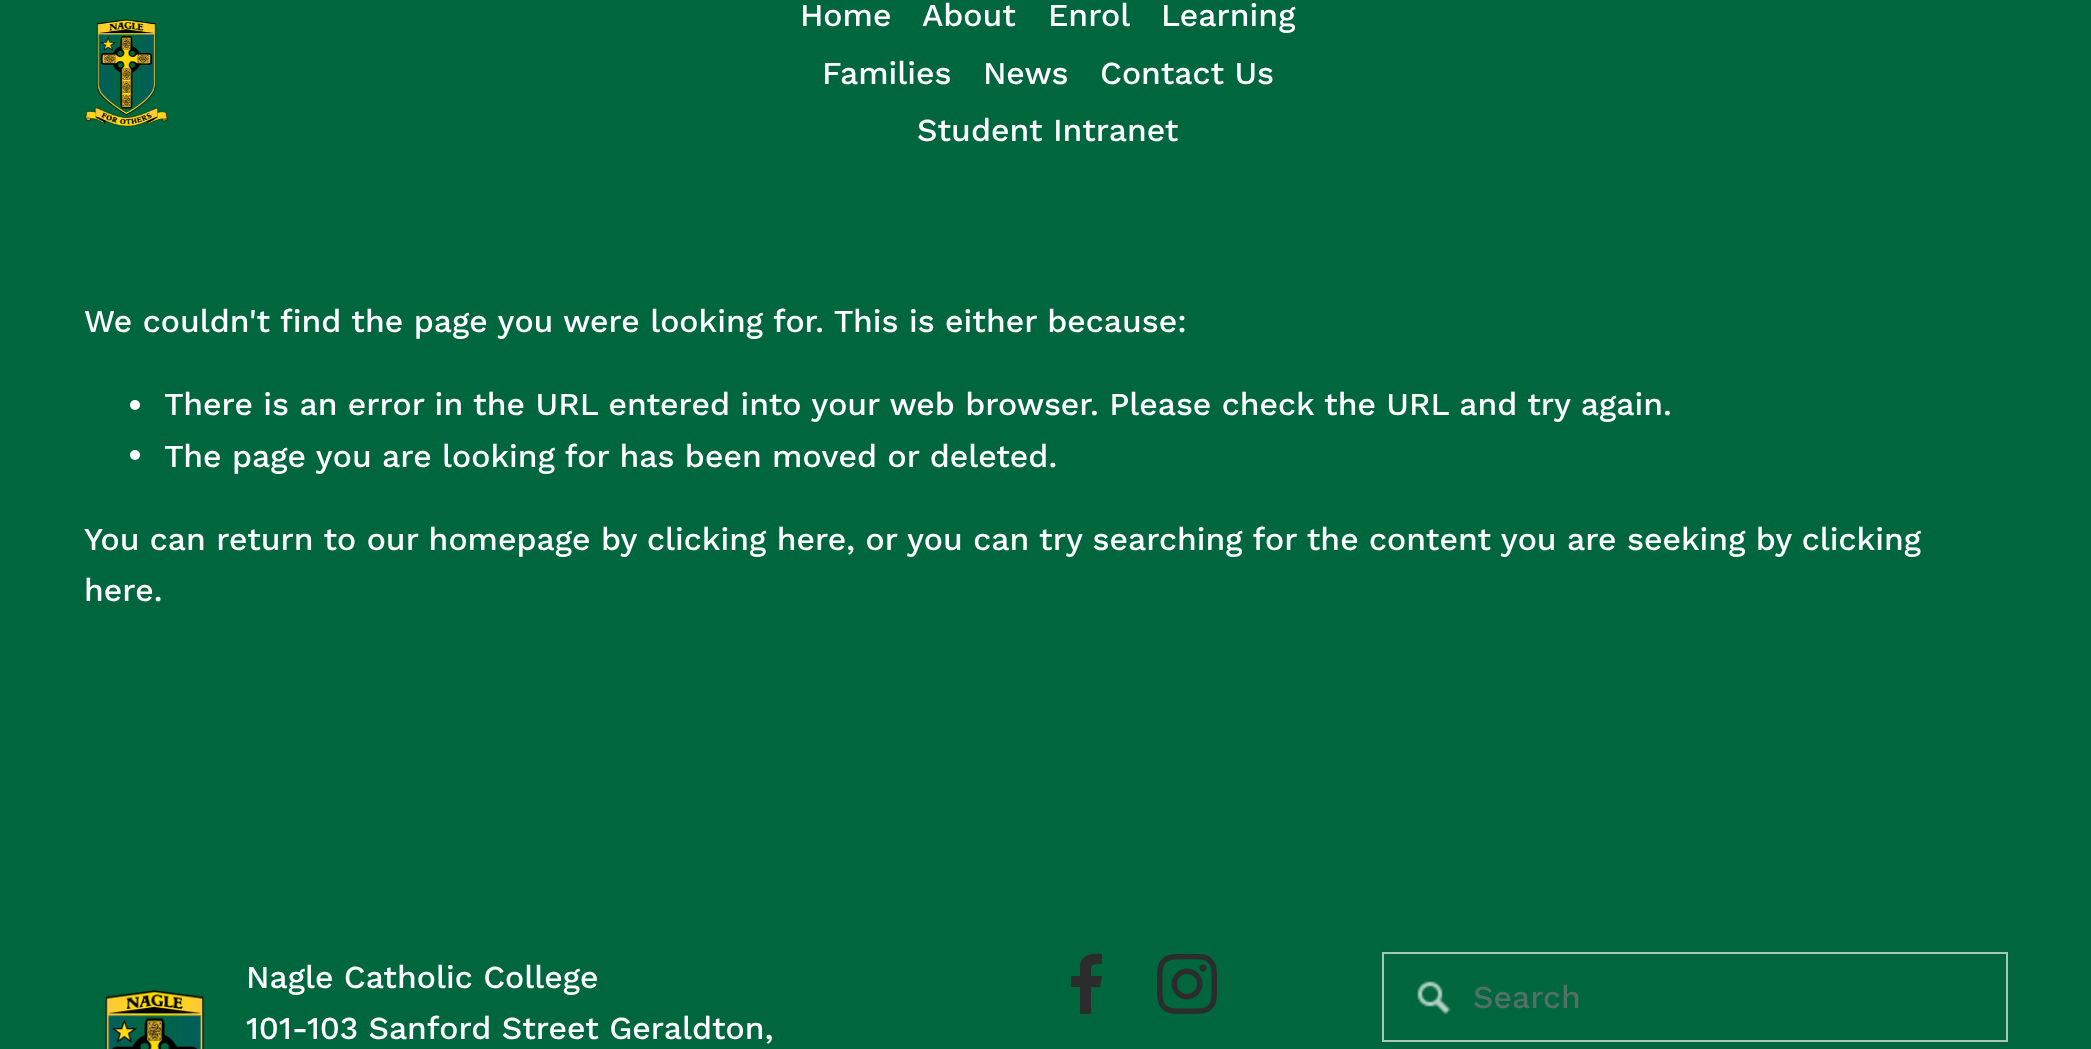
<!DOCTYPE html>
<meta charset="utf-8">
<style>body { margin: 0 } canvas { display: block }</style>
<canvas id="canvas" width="2091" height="1049"></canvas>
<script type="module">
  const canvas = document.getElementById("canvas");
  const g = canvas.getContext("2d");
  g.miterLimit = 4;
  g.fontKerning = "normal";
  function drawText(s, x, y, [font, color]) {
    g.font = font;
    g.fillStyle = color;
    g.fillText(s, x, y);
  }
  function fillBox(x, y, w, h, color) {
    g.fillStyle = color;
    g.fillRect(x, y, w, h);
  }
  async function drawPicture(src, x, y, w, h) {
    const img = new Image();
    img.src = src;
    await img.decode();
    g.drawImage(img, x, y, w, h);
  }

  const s1 = ["500 32px Work Sans", "#FFFFFF"];
  const s2 = ["500 32px Work Sans", "#527165"];

  fillBox(0, 0, 2091, 1049, "#00663E");
  await drawPicture("pic1.png", 85, 19, 83, 108);
  drawText("Home", 800, 26, s1);
  drawText("About", 922, 26, s1);
  drawText("Enrol", 1048, 26, s1);
  drawText("Learning", 1161, 26, s1);
  drawText("Families", 822, 84, s1);
  drawText("News", 983, 84, s1);
  drawText("Contact Us", 1100, 84, s1);
  drawText("Student Intranet", 917, 141, s1);
  drawText("We couldn't find the page you were looking for. This is either because:", 84, 332, s1);
  g.beginPath();
  g.arc(135, 405, 5, 0, Math.PI * 2);
  g.fill();
  drawText("There is an error in the URL entered into your web browser. Please check the URL and try again.", 164, 415, s1);
  g.beginPath();
  g.arc(135, 455, 5, 0, Math.PI * 2);
  g.fill();
  drawText("The page you are looking for has been moved or deleted.", 164, 467, s1);
  drawText("You can return to our homepage by clicking here, or you can try searching for the content you are seeking by clicking", 84, 550, s1);
  drawText("here.", 84, 601, s1);
  await drawPicture("pic2.png", 105, 990, 99, 59);
  drawText("Nagle Catholic College", 246, 988, s1);
  drawText("101-103 Sanford Street Geraldton,", 246, 1039, s1);
  g.fillStyle = "#2C2C2C";
  g.beginPath();
  g.moveTo(1091, 1014);
  g.lineTo(1091, 987);
  g.lineTo(1100, 987);
  g.lineTo(1102, 976);
  g.lineTo(1091, 976);
  g.bezierCurveTo(1091, 965, 1090, 964, 1102, 964);
  g.lineTo(1102, 954);
  g.bezierCurveTo(1093, 953, 1082, 954, 1080, 965);
  g.lineTo(1080, 976);
  g.lineTo(1071, 976);
  g.lineTo(1071, 987);
  g.lineTo(1080, 987);
  g.lineTo(1080, 1014);
  g.closePath();
  g.fill();
  await drawPicture("pic3.png", 1157, 954, 60, 60);
  await drawPicture("pic4.png", 1417, 981, 34, 34);
  g.strokeStyle = "#A7C5B9";
  g.lineWidth = 2;
  g.strokeRect(1383, 953, 624, 88);
  drawText("Search", 1473, 1008, s2);
</script>
